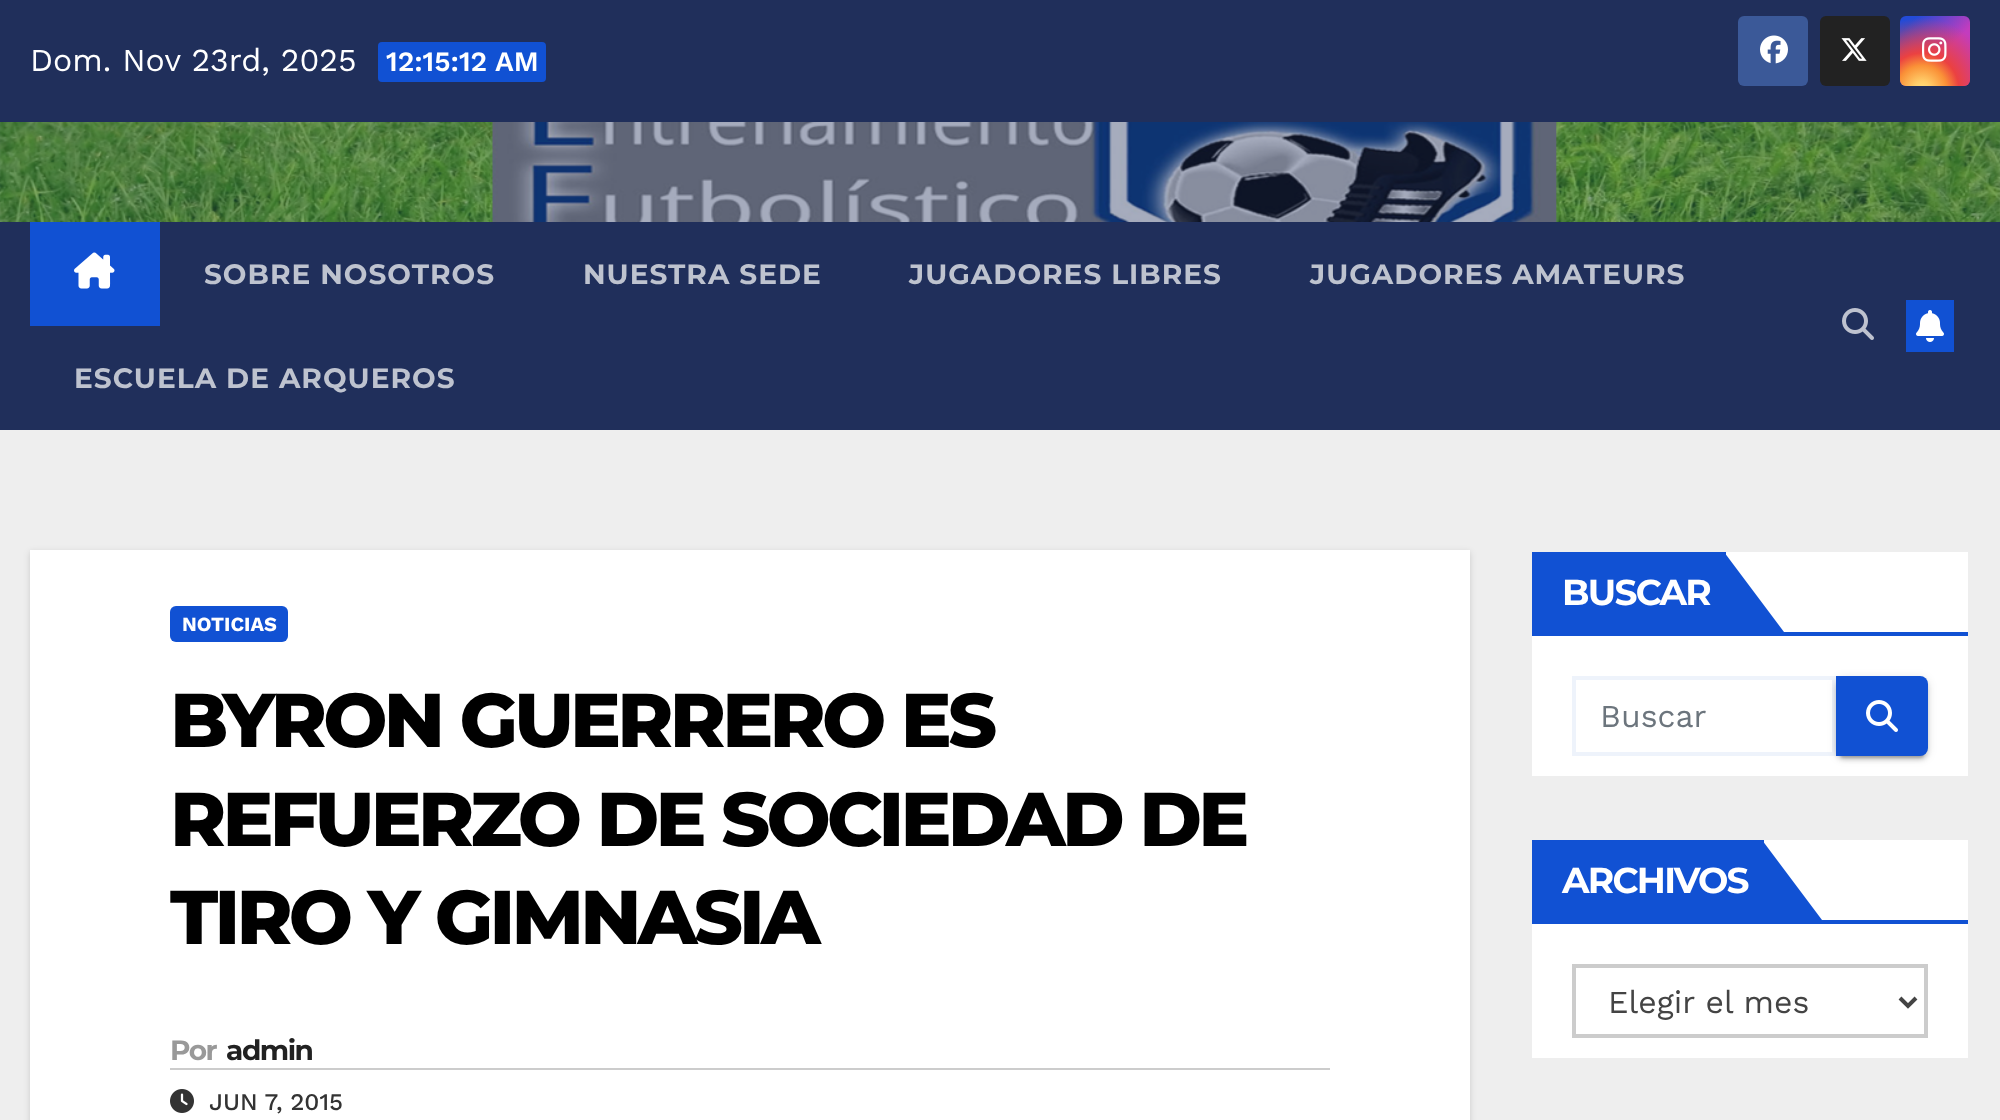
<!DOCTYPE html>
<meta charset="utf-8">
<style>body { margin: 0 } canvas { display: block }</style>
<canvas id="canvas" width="2000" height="1120"></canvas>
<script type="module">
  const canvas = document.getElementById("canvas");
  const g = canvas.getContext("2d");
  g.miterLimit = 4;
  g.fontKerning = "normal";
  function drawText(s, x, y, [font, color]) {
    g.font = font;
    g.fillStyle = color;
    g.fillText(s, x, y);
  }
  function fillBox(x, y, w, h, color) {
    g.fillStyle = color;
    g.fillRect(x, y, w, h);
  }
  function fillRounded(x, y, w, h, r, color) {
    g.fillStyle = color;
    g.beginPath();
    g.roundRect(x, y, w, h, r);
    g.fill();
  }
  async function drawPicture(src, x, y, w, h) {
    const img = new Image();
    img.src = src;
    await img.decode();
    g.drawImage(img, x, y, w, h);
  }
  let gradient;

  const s1 = ["32px Work Sans", "#FFFFFF"];
  const s2 = ["600 28px Work Sans", "#FFFFFF"];
  const s3 = ["bold 28px Montserrat", "#BEC3CF"];
  const s4 = ["bold 20px Work Sans", "#FFFFFF"];
  const s5 = ["800 76px Montserrat", "#000000"];
  const s6 = ["bold 28px Montserrat", "#999999"];
  const s7 = ["bold 28px Montserrat", "#212121"];
  const s8 = ["500 24px Work Sans", "#333333"];
  const s9 = ["bold 36px Montserrat", "#FFFFFF"];
  const s10 = ["32px Work Sans", "#6C757D"];
  const s11 = ["32px Work Sans", "#444444"];

  fillBox(0, 0, 2000, 1120, "#EEEEEE");
  fillBox(0, 0, 2000, 122, "#202F5B");
  drawText("Dom. Nov 23rd, 2025", 30, 71, s1);
  fillRounded(378, 42, 168, 40, 4, "#1151D3");
  drawText("12:15:12 AM", 386, 71, s2);
  fillRounded(1738, 16, 70, 70, 6, "#3B5998");
  await drawPicture("pic1.png", 1760, 35, 28, 29);
  fillRounded(1820, 16, 70, 70, 6, "#222222");
  await drawPicture("pic2.png", 1841, 38, 26, 23);
  gradient = g.createLinearGradient(1900, 16, 1970, 86);
  gradient.addColorStop(0.12, "#234BD7");
  gradient.addColorStop(0.58, "#C33CBE");
  g.fillStyle = gradient;
  g.beginPath();
  g.roundRect(1900, 16, 70, 70, 6);
  g.fill();
  gradient = g.createRadialGradient(1922, 90, 0, 1922, 90, 88);
  gradient.addColorStop(0, "#FFE17D");
  gradient.addColorStop(0.1, "#FFCD69");
  gradient.addColorStop(0.28, "#FA9137");
  gradient.addColorStop(0.42, "#EB4141");
  gradient.addColorStop(0.82, "rgba(235, 65, 65, 0)");
  g.fillStyle = gradient;
  g.beginPath();
  g.roundRect(1900, 16, 70, 70, 6);
  g.fill();
  await drawPicture("pic3.png", 1922, 37, 25, 25);
  await drawPicture("pic4.png", 0, 122, 2000, 100);
  fillBox(0, 222, 2000, 208, "#202F5B");
  fillBox(30, 222, 130, 104, "#1151D3");
  await drawPicture("pic5.png", 74, 252, 41, 37);
  g.letterSpacing = "1px";
  drawText("SOBRE NOSOTROS", 204, 284, s3);
  drawText("NUESTRA SEDE", 583, 284, s3);
  drawText("JUGADORES LIBRES", 909, 284, s3);
  drawText("JUGADORES AMATEURS", 1310, 284, s3);
  drawText("ESCUELA DE ARQUEROS", 74, 388, s3);
  await drawPicture("pic6.png", 1842, 308, 32, 32);
  fillBox(1906, 300, 48, 52, "#1151D3");
  await drawPicture("pic7.png", 1916, 310, 28, 32);
  g.fillStyle = "rgba(0, 0, 0, 0.15)";
  g.filter = "blur(3px)";
  g.beginPath();
  g.rect(30, 552, 1440, 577);
  g.fill();
  g.filter = "none";
  fillBox(30, 550, 1440, 570, "#FFFFFF");
  fillRounded(170, 606, 118, 36, 6, "#1151D3");
  g.letterSpacing = "0px";
  drawText("NOTICIAS", 182, 631, s4);
  g.letterSpacing = "-3.8px";
  drawText("BYRON GUERRERO ES", 170, 747, s5);
  drawText("REFUERZO DE SOCIEDAD DE", 170, 846, s5);
  drawText("TIRO Y GIMNASIA", 170, 944, s5);
  fillBox(170, 1068, 1160, 2, "#CCCCCC");
  g.letterSpacing = "-1.5px";
  drawText("Por", 170, 1060, s6);
  drawText("admin", 226, 1060, s7);
  await drawPicture("pic8.png", 170, 1089, 24, 24);
  g.letterSpacing = "0px";
  drawText("JUN 7, 2015", 209, 1110, s8);
  fillBox(1532, 552, 436, 224, "#FFFFFF");
  fillBox(1532, 632, 436, 4, "#1151D3");
  fillBox(1532, 552, 194, 80, "#1151D3");
  g.letterSpacing = "-1.75px";
  drawText("BUSCAR", 1562, 605, s9);
  g.fillStyle = "#1151D3";
  g.beginPath();
  g.moveTo(1724, 632);
  g.lineTo(1724, 552);
  g.lineTo(1784, 632);
  g.closePath();
  g.fill();
  g.strokeStyle = "#EEF3FB";
  g.lineWidth = 4;
  g.strokeRect(1574, 678, 260, 76);
  g.letterSpacing = "0px";
  drawText("Buscar", 1600, 727, s10);
  g.fillStyle = "rgba(0, 0, 0, 0.12)";
  g.filter = "blur(5px)";
  g.beginPath();
  g.roundRect(1836, 678, 92, 80, 8);
  g.fill();
  g.filter = "none";
  g.fillStyle = "rgba(0, 0, 0, 0.2)";
  g.filter = "blur(1px)";
  g.beginPath();
  g.roundRect(1840, 686, 84, 72, 4);
  g.fill();
  g.filter = "none";
  g.fillStyle = "rgba(0, 0, 0, 0.14)";
  g.filter = "blur(2px)";
  g.beginPath();
  g.roundRect(1836, 680, 92, 80, 8);
  g.fill();
  g.filter = "none";
  g.fillStyle = "#1151D3";
  g.beginPath();
  g.roundRect(1836, 676, 92, 80, [0, 8, 8, 0]);
  g.fill();
  await drawPicture("pic9.png", 1866, 700, 32, 32);
  fillBox(1532, 840, 436, 218, "#FFFFFF");
  fillBox(1532, 920, 436, 4, "#1151D3");
  fillBox(1532, 840, 232, 80, "#1151D3");
  g.letterSpacing = "-1.75px";
  drawText("ARCHIVOS", 1562, 893, s9);
  g.fillStyle = "#1151D3";
  g.beginPath();
  g.moveTo(1762, 920);
  g.lineTo(1762, 840);
  g.lineTo(1822, 920);
  g.closePath();
  g.fill();
  g.strokeStyle = "#CCCCCC";
  g.strokeRect(1574, 966, 352, 70);
  g.beginPath();
  g.moveTo(1900, 998);
  g.lineTo(1908, 1006);
  g.lineTo(1916, 998);
  g.strokeStyle = "#444444";
  g.stroke();
  g.letterSpacing = "0px";
  drawText("Elegir el mes", 1608, 1013, s11);
</script>
